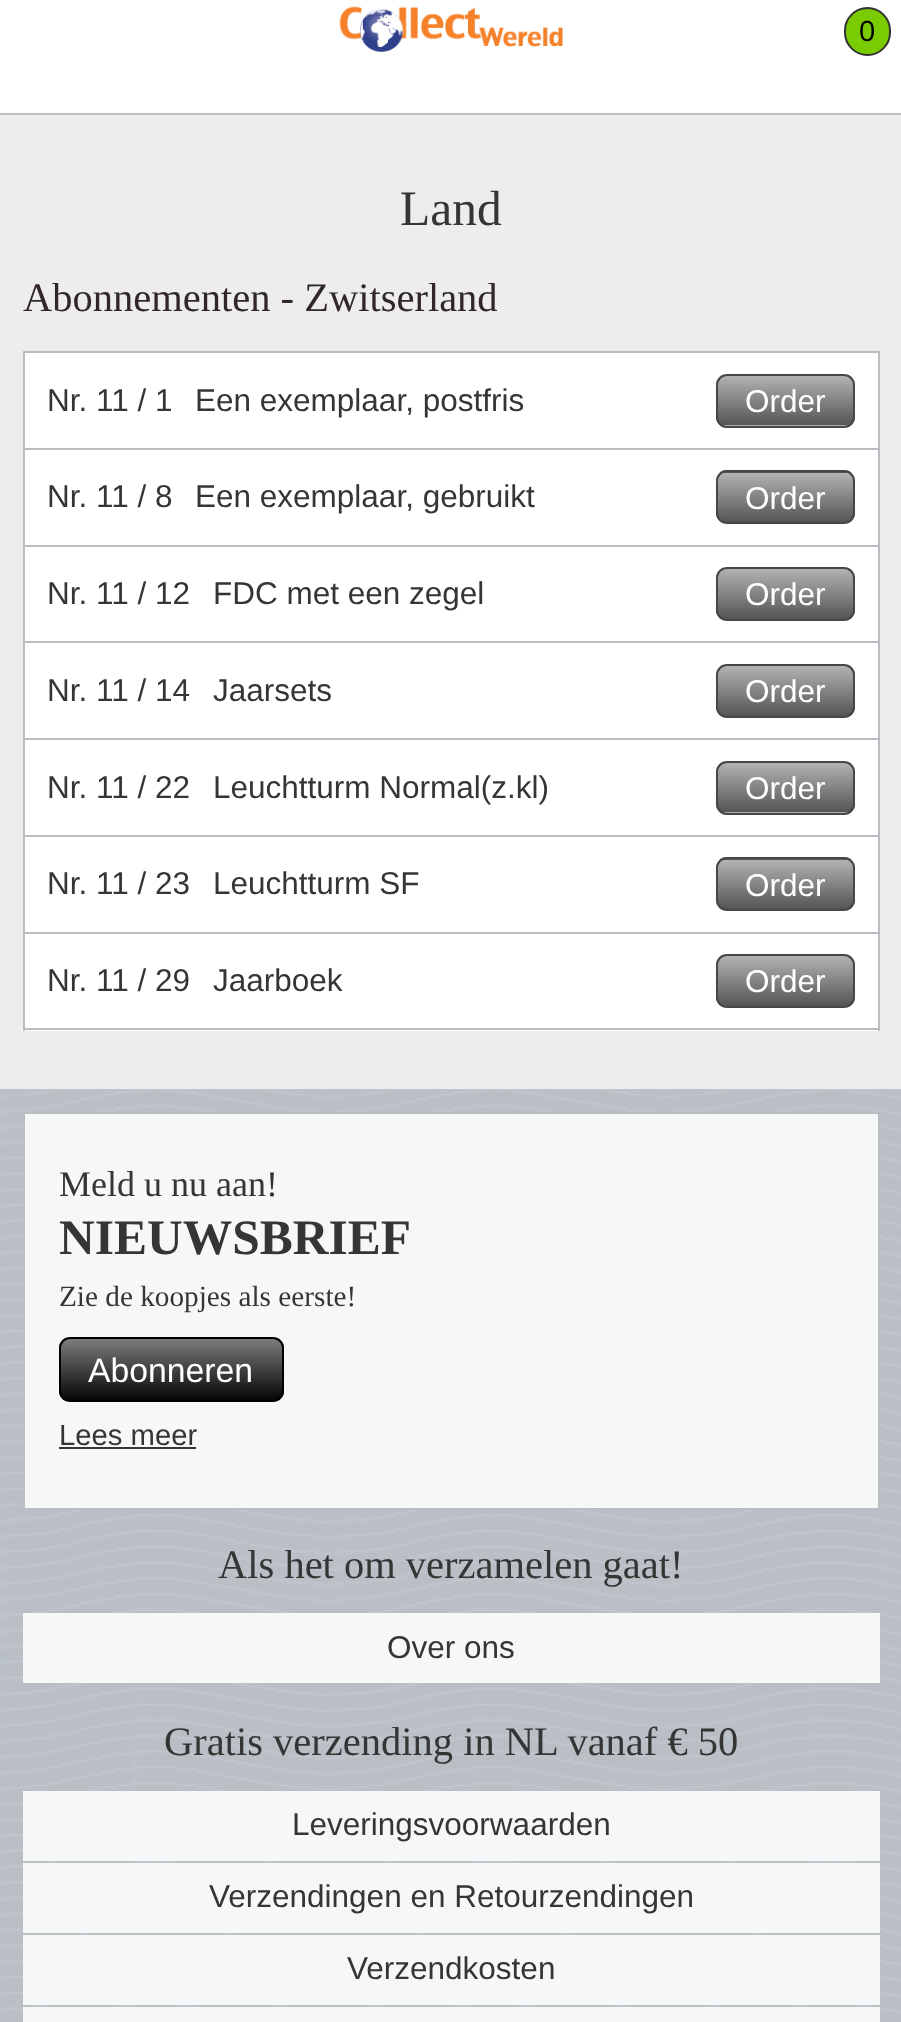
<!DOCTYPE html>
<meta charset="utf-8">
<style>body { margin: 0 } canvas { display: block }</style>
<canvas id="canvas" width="901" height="2022"></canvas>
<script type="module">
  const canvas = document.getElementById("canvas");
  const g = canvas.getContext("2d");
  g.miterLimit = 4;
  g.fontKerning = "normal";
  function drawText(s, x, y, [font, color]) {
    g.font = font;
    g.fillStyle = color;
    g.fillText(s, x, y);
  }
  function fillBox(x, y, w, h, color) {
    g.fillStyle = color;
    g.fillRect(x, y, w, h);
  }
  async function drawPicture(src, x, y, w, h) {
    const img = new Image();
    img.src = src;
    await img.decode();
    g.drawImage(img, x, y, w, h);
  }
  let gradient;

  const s1 = ["29.25px Liberation Sans", "#000000"];
  const s2 = ["49.5px Liberation Serif", "#353535"];
  const s3 = ["40.5px Liberation Serif", "#312727"];
  const s4 = ["31.5px Liberation Sans", "#353535"];
  const s5 = ["31.5px Liberation Sans", "#FFFFFF"];
  const s6 = ["36px Liberation Serif", "#353535"];
  const s7 = ["bold 49.5px Liberation Serif", "#353535"];
  const s8 = ["29.25px Liberation Serif", "#353535"];
  const s9 = ["33.75px Liberation Sans", "#FFFFFF"];
  const s10 = ["29.25px Liberation Sans", "#353535"];
  const s11 = ["40.5px Liberation Serif", "#353535"];

  fillBox(0, 0, 901, 2022, "#EDEDED");
  fillBox(0, 0, 901, 113, "#FFFFFF");
  fillBox(0, 113, 901, 2, "#BABDC1");
  await drawPicture("pic1.png", 339, 6, 224, 46);
  g.fillStyle = "#7BCB03";
  g.beginPath();
  g.roundRect(845, 8, 45, 47, 22.5);
  g.fill();
  g.strokeStyle = "#333333";
  g.lineWidth = 2;
  g.stroke();
  drawText("0", 859, 41, s1);
  drawText("Land", 400, 225, s2);
  drawText("Abonnementen - Zwitserland", 23, 311, s3);
  fillBox(23, 351, 857, 2, "#BABDC1");
  fillBox(878, 351, 2, 680, "#BABDC1");
  fillBox(23, 351, 2, 680, "#BABDC1");
  fillBox(25, 353, 853, 95, "#FFFFFF");
  fillBox(25, 448, 853, 2, "#BABDC1");
  drawText("Nr. 11 / 1", 47, 411, s4);
  drawText("Een exemplaar, postfris", 195, 411, s4);
  g.save();
  g.beginPath();
  g.roundRect(716, 374, 139, 54, 11);
  g.clip();
  gradient = g.createLinearGradient(785, 376, 785, 425);
  gradient.addColorStop(0, "#B2B2B2");
  gradient.addColorStop(1, "#555555");
  g.fillStyle = gradient;
  g.fillRect(716, 376, 139, 49);
  gradient = g.createLinearGradient(785, 425, 785, 475);
  gradient.addColorStop(0, "#B2B2B2");
  gradient.addColorStop(1, "#555555");
  g.fillStyle = gradient;
  g.fillRect(716, 425, 139, 3);
  g.restore();
  g.beginPath();
  g.roundRect(717, 375, 137, 52, 10);
  g.strokeStyle = "#474747";
  g.stroke();
  drawText("Order", 745, 412, s5);
  fillBox(25, 450, 853, 95, "#FFFFFF");
  fillBox(25, 545, 853, 2, "#BABDC1");
  drawText("Nr. 11 / 8", 47, 507, s4);
  drawText("Een exemplaar, gebruikt", 195, 507, s4);
  g.save();
  g.beginPath();
  g.roundRect(716, 470, 139, 54, 11);
  g.clip();
  gradient = g.createLinearGradient(785, 423, 785, 473);
  gradient.addColorStop(0, "#B2B2B2");
  gradient.addColorStop(1, "#555555");
  g.fillStyle = gradient;
  g.fillRect(716, 470, 139, 3);
  gradient = g.createLinearGradient(785, 473, 785, 522);
  gradient.addColorStop(0, "#B2B2B2");
  gradient.addColorStop(1, "#555555");
  g.fillStyle = gradient;
  g.fillRect(716, 473, 139, 49);
  g.restore();
  g.beginPath();
  g.roundRect(717, 471, 137, 52, 10);
  g.stroke();
  drawText("Order", 745, 509, s5);
  fillBox(25, 547, 853, 191, "#FFFFFF");
  fillBox(25, 641, 853, 2, "#BABDC1");
  drawText("Nr. 11 / 12", 47, 604, s4);
  drawText("FDC met een zegel", 213, 604, s4);
  g.save();
  g.beginPath();
  g.roundRect(716, 567, 139, 54, 11);
  g.clip();
  gradient = g.createLinearGradient(785, 569, 785, 619);
  gradient.addColorStop(0, "#B2B2B2");
  gradient.addColorStop(1, "#555555");
  g.fillStyle = gradient;
  g.fillRect(716, 569, 139, 50);
  g.restore();
  g.beginPath();
  g.roundRect(717, 568, 137, 52, 10);
  g.stroke();
  drawText("Order", 745, 605, s5);
  fillBox(25, 738, 853, 2, "#BABDC1");
  drawText("Nr. 11 / 14", 47, 701, s4);
  drawText("Jaarsets", 213, 701, s4);
  g.save();
  g.beginPath();
  g.roundRect(716, 664, 139, 54, 11);
  g.clip();
  gradient = g.createLinearGradient(785, 666, 785, 716);
  gradient.addColorStop(0, "#B2B2B2");
  gradient.addColorStop(1, "#555555");
  g.fillStyle = gradient;
  g.fillRect(716, 666, 139, 50);
  g.restore();
  g.beginPath();
  g.roundRect(717, 665, 137, 52, 10);
  g.stroke();
  drawText("Order", 745, 702, s5);
  fillBox(25, 740, 853, 95, "#FFFFFF");
  fillBox(25, 835, 853, 2, "#BABDC1");
  drawText("Nr. 11 / 22", 47, 798, s4);
  drawText("Leuchtturm Normal(z.kl)", 213, 798, s4);
  g.save();
  g.beginPath();
  g.roundRect(716, 761, 139, 54, 11);
  g.clip();
  gradient = g.createLinearGradient(785, 763, 785, 812);
  gradient.addColorStop(0, "#B2B2B2");
  gradient.addColorStop(1, "#555555");
  g.fillStyle = gradient;
  g.fillRect(716, 763, 139, 49);
  gradient = g.createLinearGradient(785, 812, 785, 862);
  gradient.addColorStop(0, "#B2B2B2");
  gradient.addColorStop(1, "#555555");
  g.fillStyle = gradient;
  g.fillRect(716, 812, 139, 3);
  g.restore();
  g.beginPath();
  g.roundRect(717, 762, 137, 52, 10);
  g.stroke();
  drawText("Order", 745, 799, s5);
  fillBox(25, 837, 853, 95, "#FFFFFF");
  fillBox(25, 932, 853, 2, "#BABDC1");
  drawText("Nr. 11 / 23", 47, 894, s4);
  drawText("Leuchtturm SF", 213, 894, s4);
  g.save();
  g.beginPath();
  g.roundRect(716, 857, 139, 54, 11);
  g.clip();
  gradient = g.createLinearGradient(785, 810, 785, 860);
  gradient.addColorStop(0, "#B2B2B2");
  gradient.addColorStop(1, "#555555");
  g.fillStyle = gradient;
  g.fillRect(716, 857, 139, 3);
  gradient = g.createLinearGradient(785, 860, 785, 909);
  gradient.addColorStop(0, "#B2B2B2");
  gradient.addColorStop(1, "#555555");
  g.fillStyle = gradient;
  g.fillRect(716, 860, 139, 49);
  g.restore();
  g.beginPath();
  g.roundRect(717, 858, 137, 52, 10);
  g.stroke();
  drawText("Order", 745, 896, s5);
  fillBox(25, 934, 853, 97, "#FFFFFF");
  fillBox(25, 1028, 853, 2, "#BABDC1");
  drawText("Nr. 11 / 29", 47, 991, s4);
  drawText("Jaarboek", 213, 991, s4);
  g.save();
  g.beginPath();
  g.roundRect(716, 954, 139, 54, 11);
  g.clip();
  gradient = g.createLinearGradient(785, 956, 785, 1006);
  gradient.addColorStop(0, "#B2B2B2");
  gradient.addColorStop(1, "#555555");
  g.fillStyle = gradient;
  g.fillRect(716, 956, 139, 50);
  g.restore();
  g.beginPath();
  g.roundRect(717, 955, 137, 52, 10);
  g.stroke();
  drawText("Order", 745, 992, s5);
  await drawPicture("pic2.png", 0, 1089, 901, 933);
  g.fillStyle = "#F6F7F7";
  g.beginPath();
  g.rect(24, 1113, 855, 396);
  g.fill();
  g.strokeStyle = "#BABDC1";
  g.stroke();
  drawText("Meld u nu aan!", 59, 1196, s6);
  drawText("NIEUWSBRIEF", 59, 1254, s7);
  drawText("Zie de koopjes als eerste!", 59, 1306, s8);
  g.save();
  g.beginPath();
  g.roundRect(59, 1337, 225, 65, 11);
  g.clip();
  gradient = g.createLinearGradient(171, 1339, 171, 1400);
  gradient.addColorStop(0, "#7C7C7C");
  gradient.addColorStop(1, "#060606");
  g.fillStyle = gradient;
  g.fillRect(59, 1339, 225, 61);
  g.restore();
  g.beginPath();
  g.roundRect(60, 1338, 223, 63, 10);
  g.strokeStyle = "#000000";
  g.stroke();
  drawText("Abonneren", 88, 1382, s9);
  drawText("Lees meer", 59, 1445, s10);
  fillBox(59, 1447, 137, 2, "#353535");
  drawText("Als het om verzamelen gaat!", 218, 1578, s11);
  fillBox(23, 1613, 857, 70, "#F6F7F7");
  drawText("Over ons", 387, 1658, s4);
  drawText("Gratis verzending in NL vanaf € 50", 164, 1755, s11);
  fillBox(23, 1791, 857, 70, "#F6F7F7");
  drawText("Leveringsvoorwaarden", 292, 1835, s4);
  fillBox(23, 1863, 857, 70, "#F6F7F7");
  drawText("Verzendingen en Retourzendingen", 209, 1907, s4);
  fillBox(23, 1935, 857, 70, "#F6F7F7");
  drawText("Verzendkosten", 347, 1979, s4);
  fillBox(23, 2007, 857, 15, "#F6F7F7");
</script>
